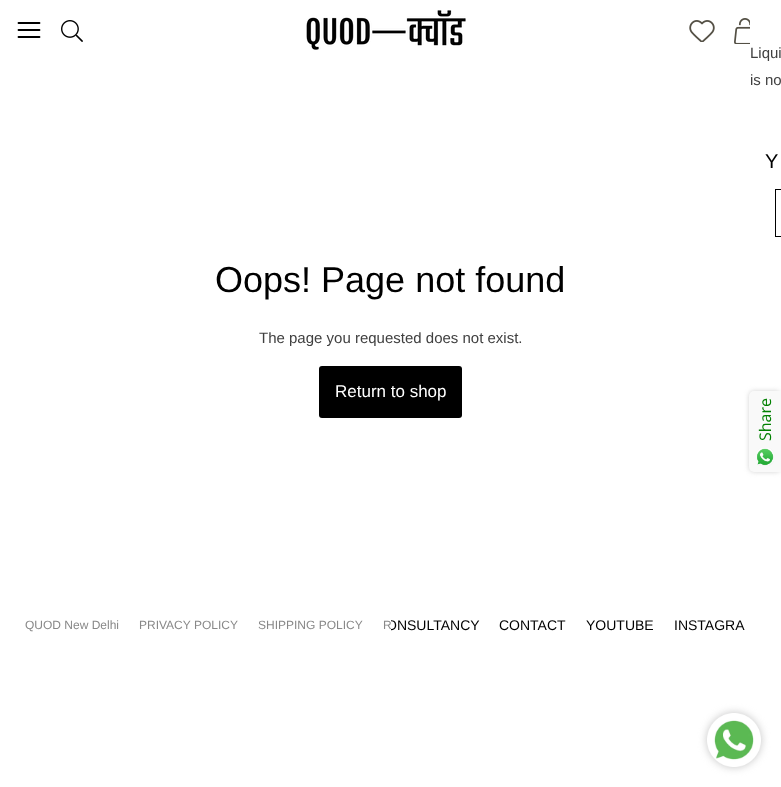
<!DOCTYPE html>
<meta charset="utf-8">
<style>body { margin: 0 } canvas { display: block }</style>
<canvas id="canvas" width="781" height="787"></canvas>
<script type="module">
  const canvas = document.getElementById("canvas");
  const g = canvas.getContext("2d");
  g.miterLimit = 4;
  g.fontKerning = "normal";
  function drawText(s, x, y, [font, color]) {
    g.font = font;
    g.fillStyle = color;
    g.fillText(s, x, y);
  }
  function fillBox(x, y, w, h, color) {
    g.fillStyle = color;
    g.fillRect(x, y, w, h);
  }
  function fillRounded(x, y, w, h, r, color) {
    g.fillStyle = color;
    g.beginPath();
    g.roundRect(x, y, w, h, r);
    g.fill();
  }
  async function drawPicture(src, x, y, w, h) {
    const img = new Image();
    img.src = src;
    await img.decode();
    g.drawImage(img, x, y, w, h);
  }

  const s1 = ["15px Liberation Sans", "#404040"];
  const s2 = ["20px Liberation Sans", "#000000"];
  const s3 = ["36px Liberation Sans", "#000000"];
  const s4 = ["17px Liberation Sans", "#FFFFFF"];
  const s5 = ["12px Liberation Sans", "#888888"];
  const s6 = ["14px Liberation Sans", "#000000"];

  fillBox(0, 0, 781, 787, "#FFFFFF");
  g.beginPath();
  g.moveTo(18.5, 30);
  g.lineTo(39.5, 30);
  g.moveTo(18.5, 23);
  g.lineTo(39.5, 23);
  g.moveTo(18.5, 37);
  g.lineTo(39.5, 37);
  g.strokeStyle = "#000000";
  g.lineWidth = 1.8;
  g.lineCap = "round";
  g.lineJoin = "round";
  g.stroke();
  await drawPicture("pic1.png", 61, 20, 22, 22);
  await drawPicture("pic2.png", 306, 10, 160, 40);
  await drawPicture("pic3.png", 689, 20, 26, 22);
  await drawPicture("pic4.png", 734, 18, 16, 26);
  drawText("Liqui", 750, 58, s1);
  drawText("is no", 750, 85, s1);
  drawText("Y", 765, 168, s2);
  g.lineWidth = 1;
  g.lineJoin = "miter";
  g.strokeRect(775.5, 189.5, 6, 47);
  drawText("Oops! Page not found", 215, 292, s3);
  drawText("The page you requested does not exist.", 259, 343, s1);
  fillRounded(319, 366, 143, 52, 3, "#000000");
  drawText("Return to shop", 335, 397, s4);
  g.fillStyle = "#D3D3D3";
  g.filter = "blur(2.5px)";
  g.beginPath();
  g.roundRect(749, 391, 32, 81, 5);
  g.fill();
  g.filter = "none";
  g.fillStyle = "#F9F9F9";
  g.beginPath();
  g.roundRect(749, 391, 32, 81, [5, 0, 0, 5]);
  g.fill();
  g.font = "16px Open Sans";
  g.fillStyle = "#008000";
  g.save();
  g.translate(771, 441);
  g.rotate(-90 * Math.PI / 180);
  g.fillText("Share", 0, 0);
  g.restore();
  await drawPicture("pic5.png", 757, 448, 17, 18);
  drawText("QUOD New Delhi", 25, 629, s5);
  drawText("PRIVACY POLICY", 139, 629, s5);
  drawText("SHIPPING POLICY", 258, 629, s5);
  drawText("R", 383, 629, s5);
  g.save();
  g.beginPath();
  g.rect(391, 613, 375, 25);
  g.clip();
  drawText("ONSULTANCY", 386, 630, s6);
  g.restore();
  drawText("CONTACT", 499, 630, s6);
  drawText("YOUTUBE", 586, 630, s6);
  drawText("INSTAGRA", 674, 630, s6);
  g.fillStyle = "#C2C2C2";
  g.filter = "blur(4px)";
  g.beginPath();
  g.roundRect(707, 713, 54, 54, 27);
  g.fill();
  g.filter = "none";
  await drawPicture("pic6.png", 707, 713, 54, 54);
</script>
